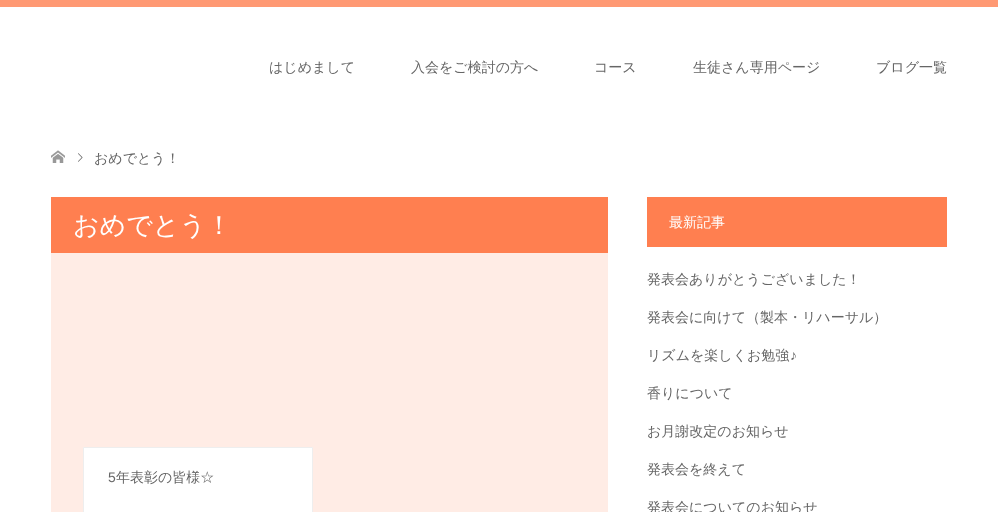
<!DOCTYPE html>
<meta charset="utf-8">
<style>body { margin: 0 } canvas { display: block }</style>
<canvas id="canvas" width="998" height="512"></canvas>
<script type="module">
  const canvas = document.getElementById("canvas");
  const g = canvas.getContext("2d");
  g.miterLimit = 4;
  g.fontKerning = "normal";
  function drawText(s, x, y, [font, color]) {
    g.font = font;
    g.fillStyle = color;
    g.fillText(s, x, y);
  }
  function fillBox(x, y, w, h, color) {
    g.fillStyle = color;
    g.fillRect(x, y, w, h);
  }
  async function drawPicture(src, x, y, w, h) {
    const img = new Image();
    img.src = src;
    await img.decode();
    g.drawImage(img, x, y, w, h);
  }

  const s1 = ["500 14px WenQuanYi Zen Hei", "#666666"];
  const s2 = ["500 26px WenQuanYi Zen Hei", "#FFFFFF"];
  const s3 = ["14px Liberation Sans", "#666666"];
  const s4 = ["500 14px WenQuanYi Zen Hei", "#FFFFFF"];

  fillBox(0, 0, 998, 512, "#FFFFFF");
  fillBox(0, 0, 998, 7, "#FF9973");
  drawText("はじめまして", 269, 72, s1);
  drawText("入会をご検討の方へ", 411, 72, s1);
  drawText("コース", 594, 72, s1);
  drawText("生徒さん専用ページ", 693, 72, s1);
  drawText("ブログ一覧", 876, 72, s1);
  await drawPicture("pic1.png", 51, 150, 14, 13);
  await drawPicture("pic2.png", 78, 153, 5, 9);
  drawText("おめでとう！", 94, 163, s1);
  fillBox(51, 197, 557, 56, "#FF7F50");
  drawText("おめでとう！", 73, 234, s2);
  fillBox(51, 253, 557, 259, "#FFECE5");
  g.fillStyle = "#FFFFFF";
  g.beginPath();
  g.rect(83.5, 447.5, 229, 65);
  g.fill();
  g.strokeStyle = "#EEEEEE";
  g.stroke();
  drawText("5", 108, 482, s3);
  drawText("年表彰の皆様☆", 116, 482, s1);
  fillBox(647, 197, 300, 50, "#FF7F50");
  drawText("最新記事", 669, 227, s4);
  drawText("発表会ありがとうございました！", 647, 284, s1);
  drawText("発表会に向けて（製本・リハーサル）", 647, 322, s1);
  drawText("リズムを楽しくお勉強", 647, 360, s1);
  drawText("♪", 790, 360, s3);
  drawText("香りについて", 647, 398, s1);
  drawText("お月謝改定のお知らせ", 647, 436, s1);
  drawText("発表会を終えて", 647, 474, s1);
  drawText("発表会についてのお知らせ", 647, 512, s1);
</script>
